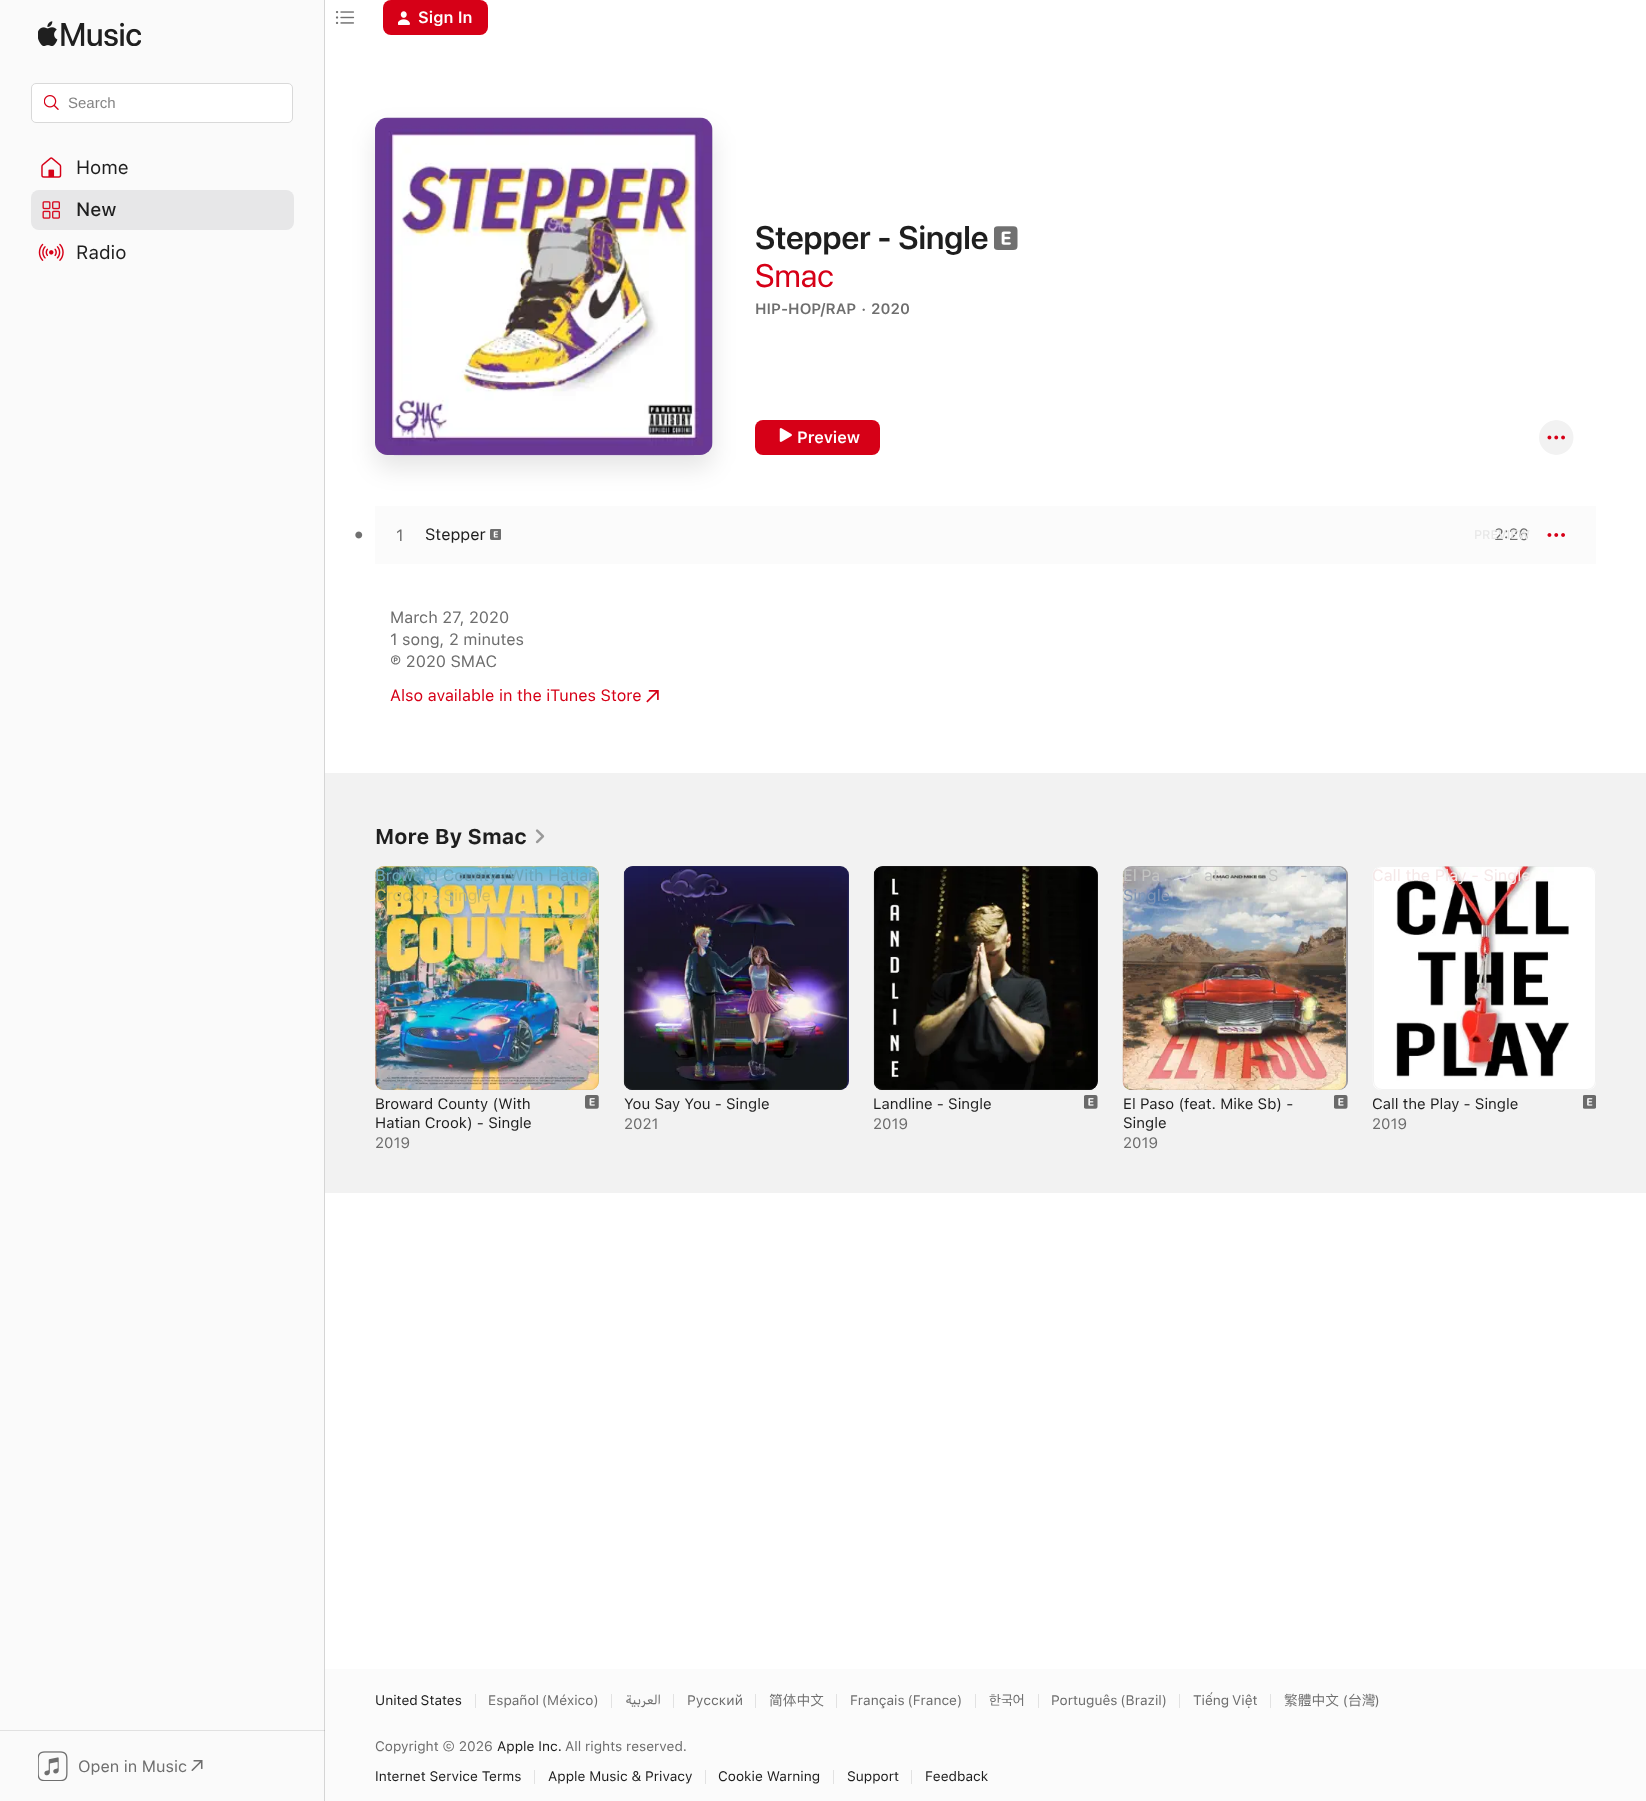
<!DOCTYPE html>
<meta charset="utf-8">
<style>body { margin: 0 } canvas { display: block }</style>
<canvas id="canvas" width="1646" height="1801"></canvas>
<script type="module">
  const canvas = document.getElementById("canvas");
  const g = canvas.getContext("2d");
  g.miterLimit = 4;
  g.fontKerning = "normal";
  function drawText(s, x, y, [font, color]) {
    g.font = font;
    g.fillStyle = color;
    g.fillText(s, x, y);
  }
  function fillBox(x, y, w, h, color) {
    g.fillStyle = color;
    g.fillRect(x, y, w, h);
  }
  function fillRounded(x, y, w, h, r, color) {
    g.fillStyle = color;
    g.beginPath();
    g.roundRect(x, y, w, h, r);
    g.fill();
  }
  async function drawPicture(src, x, y, w, h) {
    const img = new Image();
    img.src = src;
    await img.decode();
    g.drawImage(img, x, y, w, h);
  }

  const s1 = ["600 16.25px SF", "#FFFFFF"];
  const s2 = ["15px Liberation Sans", "#858585"];
  const s3 = ["19px SF", "#1E1E1E"];
  const s4 = ["500 19px SF", "#1E1E1E"];
  const s5 = ["16.25px SF", "#6E6E6E"];
  const s6 = ["600 32.5px 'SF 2'", "#1E1E1E"];
  const s7 = ["32.5px 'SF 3'", "#D60017"];
  const s8 = ["600 15px SF", "#6E6E6E"];
  const s9 = ["16.25px SF", "#1E1E1E"];
  const s10 = ["500 12.5px SF", "#E8E8E8"];
  const s11 = ["16.25px SF", "#D60017"];
  const s12 = ["bold 21.25px SF", "#1E1E1E"];
  const s13 = ["16.25px SF", "#6DA5B9"];
  const s14 = ["16.25px SF", "#D7BF5E"];
  const s15 = ["15px SF", "#1E1E1E"];
  const s16 = ["15px SF", "#6E6E6E"];
  const s17 = ["16.25px SF", "#C3C4C3"];
  const s18 = ["16.25px SF", "#8095B4"];
  const s19 = ["16.25px SF", "#F5E8E8"];
  const s20 = ["13.75px SF", "#1E1E1E"];
  const s21 = ["13.75px SF", "#6E6E6E"];
  const s22 = ["13.75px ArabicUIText", "#6E6E6E"];
  const s23 = ["13.75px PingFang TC", "#6E6E6E"];
  const s24 = ["13.75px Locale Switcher", "#6E6E6E"];
  const s25 = ["13.75px 'SF 2'", "#6E6E6E"];

  fillBox(0, 0, 1646, 1801, "#FFFFFF");
  await drawPicture("pic1.png", 335, 11, 20, 13);
  fillRounded(383, 0, 105, 35, 8, "#D60017");
  await drawPicture("pic2.png", 398, 11, 12, 14);
  drawText("Sign In", 418, 23, s1);
  fillBox(0, 0, 324, 1801, "#FAFAFA");
  fillBox(0, 1730, 325, 1, "#E1E1E1");
  fillBox(324, 0, 1, 1801, "#D5D5D5");
  fillBox(324, 1730, 1, 1, "#C0C0C0");
  await drawPicture("pic3.png", 38, 21, 103, 25);
  g.fillStyle = "#FFFFFF";
  g.beginPath();
  g.roundRect(31.5, 83.5, 261, 39, 4.5);
  g.fill();
  g.strokeStyle = "#D9D9D9";
  g.stroke();
  await drawPicture("pic4.png", 44, 95, 15, 15);
  drawText("Search", 68, 108, s2);
  await drawPicture("pic5.png", 41, 157, 21, 21);
  drawText("Home", 76, 174, s3);
  fillRounded(31, 190, 263, 40, 8, "#E7E7E8");
  await drawPicture("pic6.png", 42, 201, 18, 18);
  drawText("New", 76, 216, s4);
  await drawPicture("pic7.png", 38, 243, 26, 18);
  drawText("Radio", 76, 259, s3);
  await drawPicture("pic8.png", 38, 1751, 30, 30);
  drawText("Open in Music", 78, 1772, s5);
  await drawPicture("pic9.png", 191, 1760, 12, 11);
  fillBox(375, 506, 1221, 58, "#FBFBFB");
  g.fillStyle = "rgba(0, 0, 0, 0.1)";
  g.filter = "blur(12.5px)";
  g.beginPath();
  g.roundRect(375, 130, 338, 338, 13);
  g.fill();
  g.filter = "none";
  await drawPicture("pic10.png", 375, 117, 338, 338);
  g.beginPath();
  g.roundRect(375.5, 118.5, 337, 336, 12.5);
  g.strokeStyle = "rgba(128, 128, 128, 0.1)";
  g.stroke();
  await drawPicture("pic11.png", 394, 455, 300, 1);
  drawText("Stepper - Single", 755, 249, s6);
  await drawPicture("pic12.png", 994, 226, 24, 24);
  drawText("Smac", 755, 287, s7);
  drawText("HIP-HOP/RAP · 2020", 755, 314, s8);
  fillRounded(755, 420, 125, 35, 8, "#D60017");
  await drawPicture("pic13.png", 779, 428, 13, 14);
  drawText("Preview", 797, 443, s1);
  await drawPicture("pic14.png", 1539, 420, 35, 35);
  await drawPicture("pic15.png", 355, 531, 8, 8);
  drawText("1", 396, 541, s5);
  drawText("Stepper", 425, 540, s9);
  await drawPicture("pic16.png", 490, 529, 11, 11);
  drawText("2:26", 1494, 540, s5);
  drawText("PREVIEW", 1474, 539, s10);
  await drawPicture("pic17.png", 1547, 533, 18, 4);
  drawText("March 27, 2020", 390, 623, s5);
  drawText("1 song, 2 minutes", 390, 645, s5);
  drawText("℗ 2020 SMAC", 390, 667, s5);
  drawText("Also available in the iTunes Store", 390, 701, s11);
  await drawPicture("pic18.png", 646, 690, 13, 13);
  fillBox(325, 773, 1321, 420, "#F2F2F2");
  drawText("More By Smac", 375, 844, s12);
  await drawPicture("pic19.png", 535, 829, 10, 15);
  fillRounded(375, 866, 224, 224, 9, "#D0C169");
  await drawPicture("pic20.png", 375, 866, 224, 224);
  g.beginPath();
  g.roundRect(375.5, 866.5, 223, 223, 8.5);
  g.stroke();
  drawText("Broward County (With Hatian", 375, 881, s13);
  drawText("Crook) - Single", 375, 901, s14);
  drawText("Broward County (With", 375, 1109, s15);
  drawText("Hatian Crook) - Single", 375, 1128, s15);
  await drawPicture("pic21.png", 585, 1095, 14, 14);
  drawText("2019", 375, 1148, s16);
  fillRounded(624, 866, 225, 224, 9, "#1B184D");
  await drawPicture("pic22.png", 623, 866, 225, 224);
  g.beginPath();
  g.roundRect(624.5, 866.5, 224, 223, 8.5);
  g.stroke();
  drawText("You Say You - Single", 624, 1109, s15);
  drawText("2021", 624, 1129, s16);
  fillRounded(874, 866, 224, 224, 9, "#0C0B0A");
  await drawPicture("pic23.png", 873, 866, 225, 224);
  g.beginPath();
  g.roundRect(874.5, 866.5, 223, 223, 8.5);
  g.stroke();
  drawText("Landline - Single", 873, 1109, s15);
  await drawPicture("pic24.png", 1084, 1095, 14, 14);
  drawText("2019", 873, 1129, s16);
  fillRounded(1123, 866, 225, 224, 9, "#9E9CA0");
  await drawPicture("pic25.png", 1122, 866, 225, 224);
  g.beginPath();
  g.roundRect(1123.5, 866.5, 224, 223, 8.5);
  g.stroke();
  drawText("El Pa", 1123, 881, s17);
  drawText("at.", 1204, 881, s17);
  drawText("S", 1268, 881, s17);
  drawText("-", 1300, 881, s17);
  drawText("Single", 1123, 901, s18);
  drawText("El Paso (feat. Mike Sb) -", 1123, 1109, s15);
  drawText("Single", 1123, 1128, s15);
  await drawPicture("pic24.png", 1334, 1095, 14, 14);
  drawText("2019", 1123, 1148, s16);
  fillRounded(1373, 866, 223, 224, 9, "#FFFFFF");
  await drawPicture("pic26.png", 1372, 866, 224, 224);
  g.beginPath();
  g.roundRect(1373.5, 866.5, 222, 223, 8.5);
  g.stroke();
  drawText("Call the Play - Single", 1372, 881, s19);
  drawText("Call the Play - Single", 1372, 1109, s15);
  await drawPicture("pic27.png", 1583, 1095, 13, 14);
  drawText("2019", 1372, 1129, s16);
  fillBox(325, 1669, 1321, 132, "#FBFBFB");
  g.wordSpacing = "-1px";
  drawText("United States", 375, 1705, s20);
  fillBox(475, 1694, 1, 14, "#E2E2E2");
  drawText("Español (México)", 488, 1705, s21);
  fillBox(611, 1694, 1, 14, "#E2E2E2");
  g.wordSpacing = "0px";
  g.direction = "rtl";
  drawText("العربية", 661, 1705, s22);
  fillBox(673, 1694, 1, 14, "#E2E2E2");
  g.direction = "ltr";
  drawText("Русский", 687, 1705, s21);
  fillBox(755, 1694, 1, 14, "#E2E2E2");
  drawText("简体中文", 769, 1705, s23);
  fillBox(836, 1694, 1, 14, "#E2E2E2");
  g.wordSpacing = "-1px";
  drawText("Français (France)", 850, 1705, s21);
  fillBox(975, 1694, 1, 14, "#E2E2E2");
  g.wordSpacing = "0px";
  drawText("한국어", 989, 1705, s24);
  fillBox(1038, 1694, 1, 14, "#E2E2E2");
  g.wordSpacing = "-1px";
  drawText("Português (Brazil)", 1051, 1705, s21);
  fillBox(1179, 1694, 1, 14, "#E2E2E2");
  drawText("Tiếng Việt", 1193, 1705, s21);
  fillBox(1270, 1694, 1, 14, "#E2E2E2");
  g.wordSpacing = "0px";
  drawText("繁體中文", 1284, 1705, s23);
  drawText("(", 1343, 1705, s25);
  drawText("台灣", 1348, 1705, s23);
  drawText(")", 1375, 1705, s25);
  drawText("Copyright © 2026", 375, 1751, s21);
  drawText("Apple Inc.", 497, 1751, s20);
  drawText("All rights reserved.", 565, 1751, s21);
  drawText("Internet Service Terms", 375, 1781, s20);
  fillBox(534, 1770, 1, 14, "#E2E2E2");
  drawText("Apple Music & Privacy", 548, 1781, s20);
  fillBox(705, 1770, 1, 14, "#E2E2E2");
  drawText("Cookie Warning", 718, 1781, s20);
  fillBox(833, 1770, 1, 14, "#E2E2E2");
  drawText("Support", 847, 1781, s20);
  fillBox(911, 1770, 1, 14, "#E2E2E2");
  drawText("Feedback", 925, 1781, s20);
</script>
